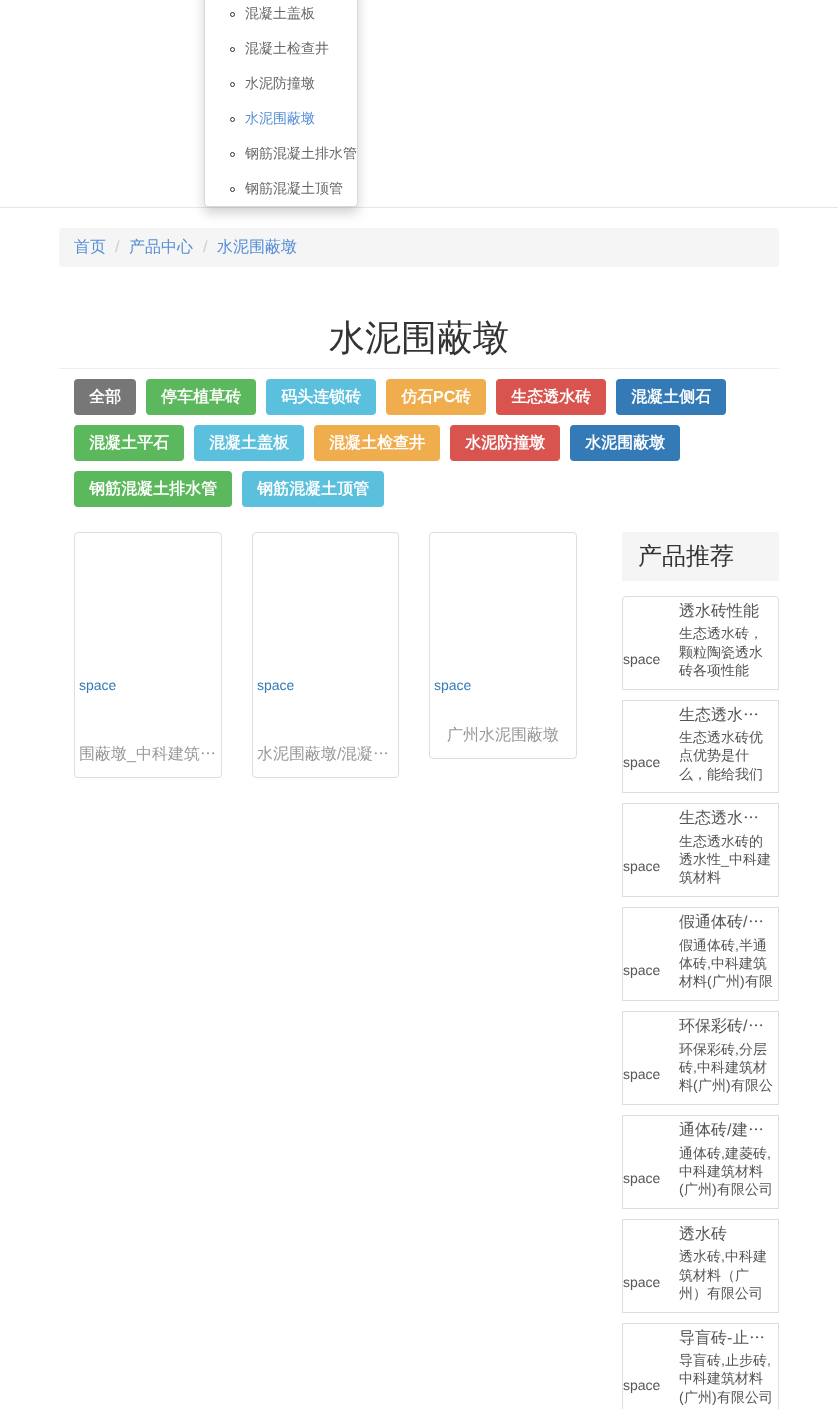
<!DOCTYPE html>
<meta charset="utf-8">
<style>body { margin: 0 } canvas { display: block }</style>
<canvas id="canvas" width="838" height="1409"></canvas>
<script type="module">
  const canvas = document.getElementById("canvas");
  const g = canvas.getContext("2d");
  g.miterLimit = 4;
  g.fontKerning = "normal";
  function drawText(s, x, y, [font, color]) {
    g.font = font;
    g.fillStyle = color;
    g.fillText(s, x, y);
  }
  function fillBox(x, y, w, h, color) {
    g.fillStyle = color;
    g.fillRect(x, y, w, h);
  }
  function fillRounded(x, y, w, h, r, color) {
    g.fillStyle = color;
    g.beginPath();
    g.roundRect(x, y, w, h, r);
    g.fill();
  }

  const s1 = ["500 14px WenQuanYi Zen Hei", "#666666"];
  const s2 = ["500 14px WenQuanYi Zen Hei", "#558ED5"];
  const s3 = ["500 16px WenQuanYi Zen Hei", "#558ED5"];
  const s4 = ["16px Liberation Sans", "#CCCCCC"];
  const s5 = ["500 36px WenQuanYi Zen Hei", "#333333"];
  const s6 = ["bold 16px WenQuanYi Zen Hei", "#FFFFFF"];
  const s7 = ["bold 16px Liberation Sans", "#FFFFFF"];
  const s8 = ["14px Liberation Sans", "#337AB7"];
  const s9 = ["500 16px WenQuanYi Zen Hei", "#999999"];
  const s10 = ["16px Liberation Sans", "#999999"];
  const s11 = ["500 24px WenQuanYi Zen Hei", "#333333"];
  const s12 = ["14px Liberation Sans", "#555555"];
  const s13 = ["500 16px WenQuanYi Zen Hei", "#555555"];
  const s14 = ["500 14px WenQuanYi Zen Hei", "#555555"];
  const s15 = ["16px Liberation Sans", "#555555"];

  fillBox(0, 0, 838, 1409, "#FFFFFF");
  fillBox(0, 207, 838, 1, "#E7E7E7");
  fillRounded(59, 228, 720, 39, 4, "#F5F5F5");
  g.save();
  g.beginPath();
  g.moveTo(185, 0);
  g.lineTo(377, 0);
  g.lineTo(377, 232);
  g.lineTo(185, 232);
  g.closePath();
  g.moveTo(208, -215);
  g.lineTo(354, -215);
  g.bezierCurveTo(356, -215, 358, -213, 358, -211);
  g.lineTo(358, 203);
  g.bezierCurveTo(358, 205, 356, 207, 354, 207);
  g.lineTo(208, 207);
  g.bezierCurveTo(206, 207, 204, 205, 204, 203);
  g.lineTo(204, -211);
  g.bezierCurveTo(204, -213, 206, -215, 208, -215);
  g.closePath();
  g.clip("evenodd");
  g.fillStyle = "rgba(0, 0, 0, 0.18)";
  g.filter = "blur(6px)";
  g.beginPath();
  g.roundRect(204, -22, 154, 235, 4);
  g.fill();
  g.filter = "none";
  g.restore();
  g.beginPath();
  g.roundRect(204.5, -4.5, 153, 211, 3.5);
  g.strokeStyle = "rgba(0, 0, 0, 0.15)";
  g.stroke();
  g.beginPath();
  g.arc(232.5, 14.5, 2, 0, Math.PI * 2);
  g.strokeStyle = "#333333";
  g.stroke();
  drawText("混凝土盖板", 245, 18, s1);
  g.beginPath();
  g.arc(232.5, 49.5, 2, 0, Math.PI * 2);
  g.stroke();
  drawText("混凝土检查井", 245, 53, s1);
  g.beginPath();
  g.arc(232.5, 84.5, 2, 0, Math.PI * 2);
  g.stroke();
  drawText("水泥防撞墩", 245, 88, s1);
  g.beginPath();
  g.arc(232.5, 119.5, 2, 0, Math.PI * 2);
  g.stroke();
  drawText("水泥围蔽墩", 245, 123, s2);
  g.beginPath();
  g.arc(232.5, 154.5, 2, 0, Math.PI * 2);
  g.stroke();
  drawText("钢筋混凝土排水管", 245, 158, s1);
  g.beginPath();
  g.arc(232.5, 189.5, 2, 0, Math.PI * 2);
  g.stroke();
  drawText("钢筋混凝土顶管", 245, 193, s1);
  drawText("首页", 74, 252, s3);
  drawText("/", 115, 252, s4);
  drawText("产品中心", 129, 252, s3);
  drawText("/", 203, 252, s4);
  drawText("水泥围蔽墩", 217, 252, s3);
  fillBox(59, 368, 720, 1, "#EEEEEE");
  drawText("水泥围蔽墩", 329, 350, s5);
  fillRounded(74, 379, 62, 36, 4, "#777777");
  drawText("全部", 89, 402, s6);
  fillRounded(146, 379, 110, 36, 4, "#5CB85C");
  drawText("停车植草砖", 161, 402, s6);
  fillRounded(266, 379, 110, 36, 4, "#5BC0DE");
  drawText("码头连锁砖", 281, 402, s6);
  fillRounded(386, 379, 100, 36, 4, "#F0AD4E");
  drawText("仿石", 401, 402, s6);
  drawText("PC", 433, 402, s7);
  drawText("砖", 455, 402, s6);
  fillRounded(496, 379, 110, 36, 4, "#D9534F");
  drawText("生态透水砖", 511, 402, s6);
  fillRounded(616, 379, 110, 36, 4, "#337AB7");
  drawText("混凝土侧石", 631, 402, s6);
  fillRounded(74, 425, 110, 36, 4, "#5CB85C");
  drawText("混凝土平石", 89, 448, s6);
  fillRounded(194, 425, 110, 36, 4, "#5BC0DE");
  drawText("混凝土盖板", 209, 448, s6);
  fillRounded(314, 425, 126, 36, 4, "#F0AD4E");
  drawText("混凝土检查井", 329, 448, s6);
  fillRounded(450, 425, 110, 36, 4, "#D9534F");
  drawText("水泥防撞墩", 465, 448, s6);
  fillRounded(570, 425, 110, 36, 4, "#337AB7");
  drawText("水泥围蔽墩", 585, 448, s6);
  fillRounded(74, 471, 158, 36, 4, "#5CB85C");
  drawText("钢筋混凝土排水管", 89, 494, s6);
  fillRounded(242, 471, 142, 36, 4, "#5BC0DE");
  drawText("钢筋混凝土顶管", 257, 494, s6);
  g.beginPath();
  g.roundRect(74.5, 532.5, 147, 245, 3.5);
  g.strokeStyle = "#DDDDDD";
  g.stroke();
  drawText("space", 79, 690, s8);
  drawText("围蔽墩", 79, 759, s9);
  drawText("_", 127, 759, s10);
  drawText("中科建筑…", 136, 759, s9);
  g.beginPath();
  g.roundRect(252.5, 532.5, 146, 245, 3.5);
  g.stroke();
  drawText("space", 257, 690, s8);
  drawText("水泥围蔽墩", 257, 759, s9);
  drawText("/", 337, 759, s10);
  drawText("混凝…", 341, 759, s9);
  g.beginPath();
  g.roundRect(429.5, 532.5, 147, 226, 3.5);
  g.stroke();
  drawText("space", 434, 690, s8);
  drawText("广州水泥围蔽墩", 447, 740, s9);
  g.fillStyle = "#F5F5F5";
  g.beginPath();
  g.roundRect(622, 532, 157, 49, [3, 3, 0, 0]);
  g.fill();
  drawText("产品推荐", 638, 564, s11);
  g.beginPath();
  g.roundRect(622.5, 596.5, 156, 93, [3.5, 3.5, 0, 0]);
  g.stroke();
  drawText("space", 623, 664, s12);
  drawText("透水砖性能", 679, 616, s13);
  drawText("生态透水砖，", 679, 638, s14);
  drawText("颗粒陶瓷透水", 679, 657, s14);
  drawText("砖各项性能", 679, 675, s14);
  g.strokeRect(622.5, 700.5, 156, 92);
  drawText("space", 623, 767, s12);
  drawText("生态透水…", 679, 720, s13);
  drawText("生态透水砖优", 679, 742, s14);
  drawText("点优势是什", 679, 760, s14);
  drawText("么，能给我们", 679, 779, s14);
  g.strokeRect(622.5, 803.5, 156, 93);
  drawText("space", 623, 871, s12);
  drawText("生态透水…", 679, 823, s13);
  drawText("生态透水砖的", 679, 846, s14);
  drawText("透水性", 679, 864, s14);
  drawText("_", 721, 864, s12);
  drawText("中科建", 729, 864, s14);
  drawText("筑材料", 679, 882, s14);
  g.strokeRect(622.5, 907.5, 156, 93);
  drawText("space", 623, 975, s12);
  drawText("假通体砖", 679, 927, s13);
  drawText("/", 743, 927, s15);
  drawText("…", 748, 927, s13);
  drawText("假通体砖", 679, 950, s14);
  drawText(",", 735, 950, s12);
  drawText("半通", 739, 950, s14);
  drawText("体砖", 679, 968, s14);
  drawText(",", 707, 968, s12);
  drawText("中科建筑", 711, 968, s14);
  drawText("材料", 679, 986, s14);
  drawText("(", 707, 986, s12);
  drawText("广州", 712, 986, s14);
  drawText(")", 740, 986, s12);
  drawText("有限", 745, 986, s14);
  g.strokeRect(622.5, 1011.5, 156, 93);
  drawText("space", 623, 1079, s12);
  drawText("环保彩砖", 679, 1031, s13);
  drawText("/", 743, 1031, s15);
  drawText("…", 748, 1031, s13);
  drawText("环保彩砖", 679, 1054, s14);
  drawText(",", 735, 1054, s12);
  drawText("分层", 739, 1054, s14);
  drawText("砖", 679, 1072, s14);
  drawText(",", 693, 1072, s12);
  drawText("中科建筑材", 697, 1072, s14);
  drawText("料", 679, 1090, s14);
  drawText("(", 693, 1090, s12);
  drawText("广州", 698, 1090, s14);
  drawText(")", 726, 1090, s12);
  drawText("有限公", 731, 1090, s14);
  g.strokeRect(622.5, 1115.5, 156, 93);
  drawText("space", 623, 1183, s12);
  drawText("通体砖", 679, 1135, s13);
  drawText("/", 727, 1135, s15);
  drawText("建…", 732, 1135, s13);
  drawText("通体砖", 679, 1158, s14);
  drawText(",", 721, 1158, s12);
  drawText("建菱砖", 725, 1158, s14);
  drawText(",", 767, 1158, s12);
  drawText("中科建筑材料", 679, 1176, s14);
  drawText("(", 679, 1194, s12);
  drawText("广州", 684, 1194, s14);
  drawText(")", 712, 1194, s12);
  drawText("有限公司", 717, 1194, s14);
  g.strokeRect(622.5, 1219.5, 156, 93);
  drawText("space", 623, 1287, s12);
  drawText("透水砖", 679, 1239, s13);
  drawText("透水砖", 679, 1261, s14);
  drawText(",", 721, 1261, s12);
  drawText("中科建", 725, 1261, s14);
  drawText("筑材料（广", 679, 1280, s14);
  drawText("州）有限公司", 679, 1298, s14);
  g.strokeRect(622.5, 1323.5, 156, 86);
  drawText("space", 623, 1390, s12);
  drawText("导盲砖", 679, 1343, s13);
  drawText("-", 727, 1343, s15);
  drawText("止…", 733, 1343, s13);
  drawText("导盲砖", 679, 1365, s14);
  drawText(",", 721, 1365, s12);
  drawText("止步砖", 725, 1365, s14);
  drawText(",", 767, 1365, s12);
  drawText("中科建筑材料", 679, 1383, s14);
  drawText("(", 679, 1402, s12);
  drawText("广州", 684, 1402, s14);
  drawText(")", 712, 1402, s12);
  drawText("有限公司", 717, 1402, s14);
</script>
